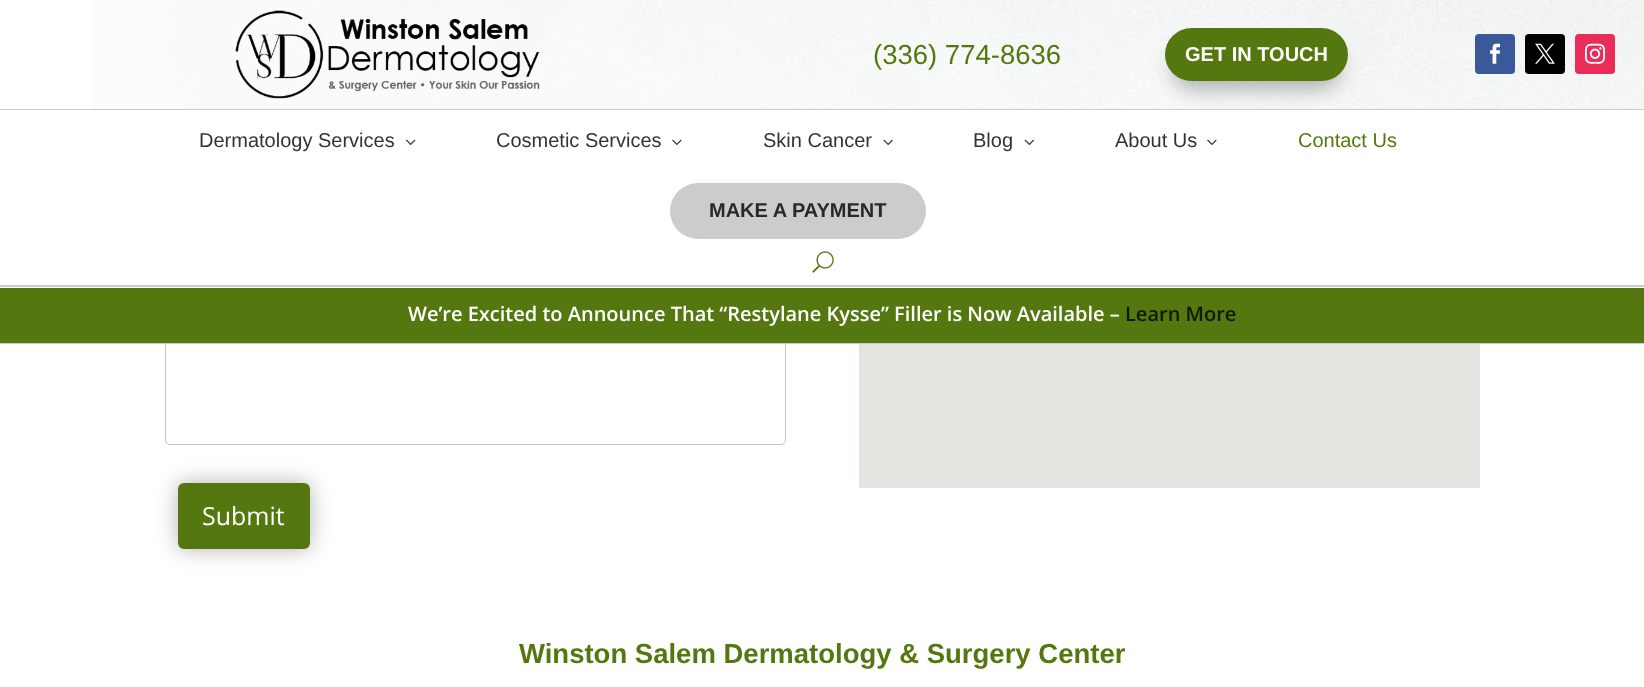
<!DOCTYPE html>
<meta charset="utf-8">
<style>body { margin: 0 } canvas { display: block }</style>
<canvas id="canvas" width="1644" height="687"></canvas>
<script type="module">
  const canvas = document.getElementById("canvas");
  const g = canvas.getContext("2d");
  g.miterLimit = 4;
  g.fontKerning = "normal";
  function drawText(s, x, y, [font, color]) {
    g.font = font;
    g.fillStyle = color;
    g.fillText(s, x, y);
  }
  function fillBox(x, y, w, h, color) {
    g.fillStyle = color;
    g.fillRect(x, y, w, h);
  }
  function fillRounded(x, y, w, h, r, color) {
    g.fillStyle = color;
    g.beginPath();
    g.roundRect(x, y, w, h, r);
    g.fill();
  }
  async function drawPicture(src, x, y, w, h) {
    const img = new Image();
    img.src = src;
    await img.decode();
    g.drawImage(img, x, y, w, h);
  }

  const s1 = ["27.5px Liberation Sans", "#54770F"];
  const s2 = ["bold 20px Liberation Sans", "#FFFFFF"];
  const s3 = ["20px Liberation Sans", "#333333"];
  const s4 = ["20px Liberation Sans", "#54770F"];
  const s5 = ["bold 20px Liberation Sans", "#292929"];
  const s6 = ["600 20px Open Sans", "#FFFFFF"];
  const s7 = ["600 20px Open Sans", "#111803"];
  const s8 = ["25px Open Sans", "#FFFFFF"];
  const s9 = ["bold 27.5px Liberation Sans", "#54770F"];

  fillBox(0, 0, 1644, 687, "#FFFFFF");
  g.beginPath();
  g.roundRect(165.5, 255.5, 620, 189, 4.5);
  g.strokeStyle = "#BFC3C8";
  g.stroke();
  fillBox(165, 255, 621, 33, "#FFFFFF");
  await drawPicture("pic1.png", 93, 0, 1551, 109);
  await drawPicture("pic2.png", 235, 10, 305, 89);
  drawText("(336) 774-8636", 873, 64, s1);
  g.fillStyle = "rgba(0, 0, 0, 0.3)";
  g.filter = "blur(11px)";
  g.beginPath();
  g.roundRect(1173, 50, 167, 39, 19.5);
  g.fill();
  g.filter = "none";
  fillRounded(1165, 28, 183, 53, 26.5, "#54770F");
  drawText("GET IN TOUCH", 1185, 61, s2);
  fillRounded(1475, 34, 40, 40, 4, "#3B5998");
  await drawPicture("pic3.png", 1490, 43, 10, 21);
  fillRounded(1525, 34, 40, 40, 4, "#000000");
  await drawPicture("pic4.png", 1535, 43, 20, 21);
  fillRounded(1575, 34, 40, 40, 4, "#EA2C59");
  await drawPicture("pic5.png", 1585, 43, 20, 21);
  fillBox(0, 109, 1644, 1, "#CCCCCC");
  drawText("Dermatology Services", 199, 147, s3);
  await drawPicture("pic6.png", 406, 139, 10, 6);
  drawText("Cosmetic Services", 496, 147, s3);
  await drawPicture("pic7.png", 672, 139, 10, 6);
  drawText("Skin Cancer", 763, 147, s3);
  await drawPicture("pic8.png", 883, 139, 10, 6);
  drawText("Blog", 973, 147, s3);
  await drawPicture("pic9.png", 1024, 139, 10, 6);
  drawText("About Us", 1115, 147, s3);
  await drawPicture("pic7.png", 1207, 139, 10, 6);
  drawText("Contact Us", 1298, 147, s4);
  fillRounded(670, 183, 256, 56, 28, "#CCCCCC");
  drawText("MAKE A PAYMENT", 709, 217, s5);
  await drawPicture("pic10.png", 812, 251, 22, 22);
  fillBox(0, 288, 1644, 55, "#54770F");
  fillBox(0, 285, 1644, 2, "#CCCCCC");
  fillBox(0, 343, 1644, 1, "#CCCCCC");
  drawText("We’re Excited to Announce That “Restylane Kysse” Filler is Now Available –", 408, 321, s6);
  drawText("Learn More", 1125, 321, s7);
  fillBox(859, 344, 621, 144, "#E5E3DF");
  g.fillStyle = "rgba(0, 0, 0, 0.3)";
  g.filter = "blur(11px)";
  g.beginPath();
  g.roundRect(178, 483, 132, 66, 6);
  g.fill();
  g.filter = "none";
  fillRounded(178, 483, 132, 66, 6, "#54770F");
  drawText("Submit", 202, 525, s8);
  drawText("Winston Salem Dermatology & Surgery Center", 519, 663, s9);
</script>
